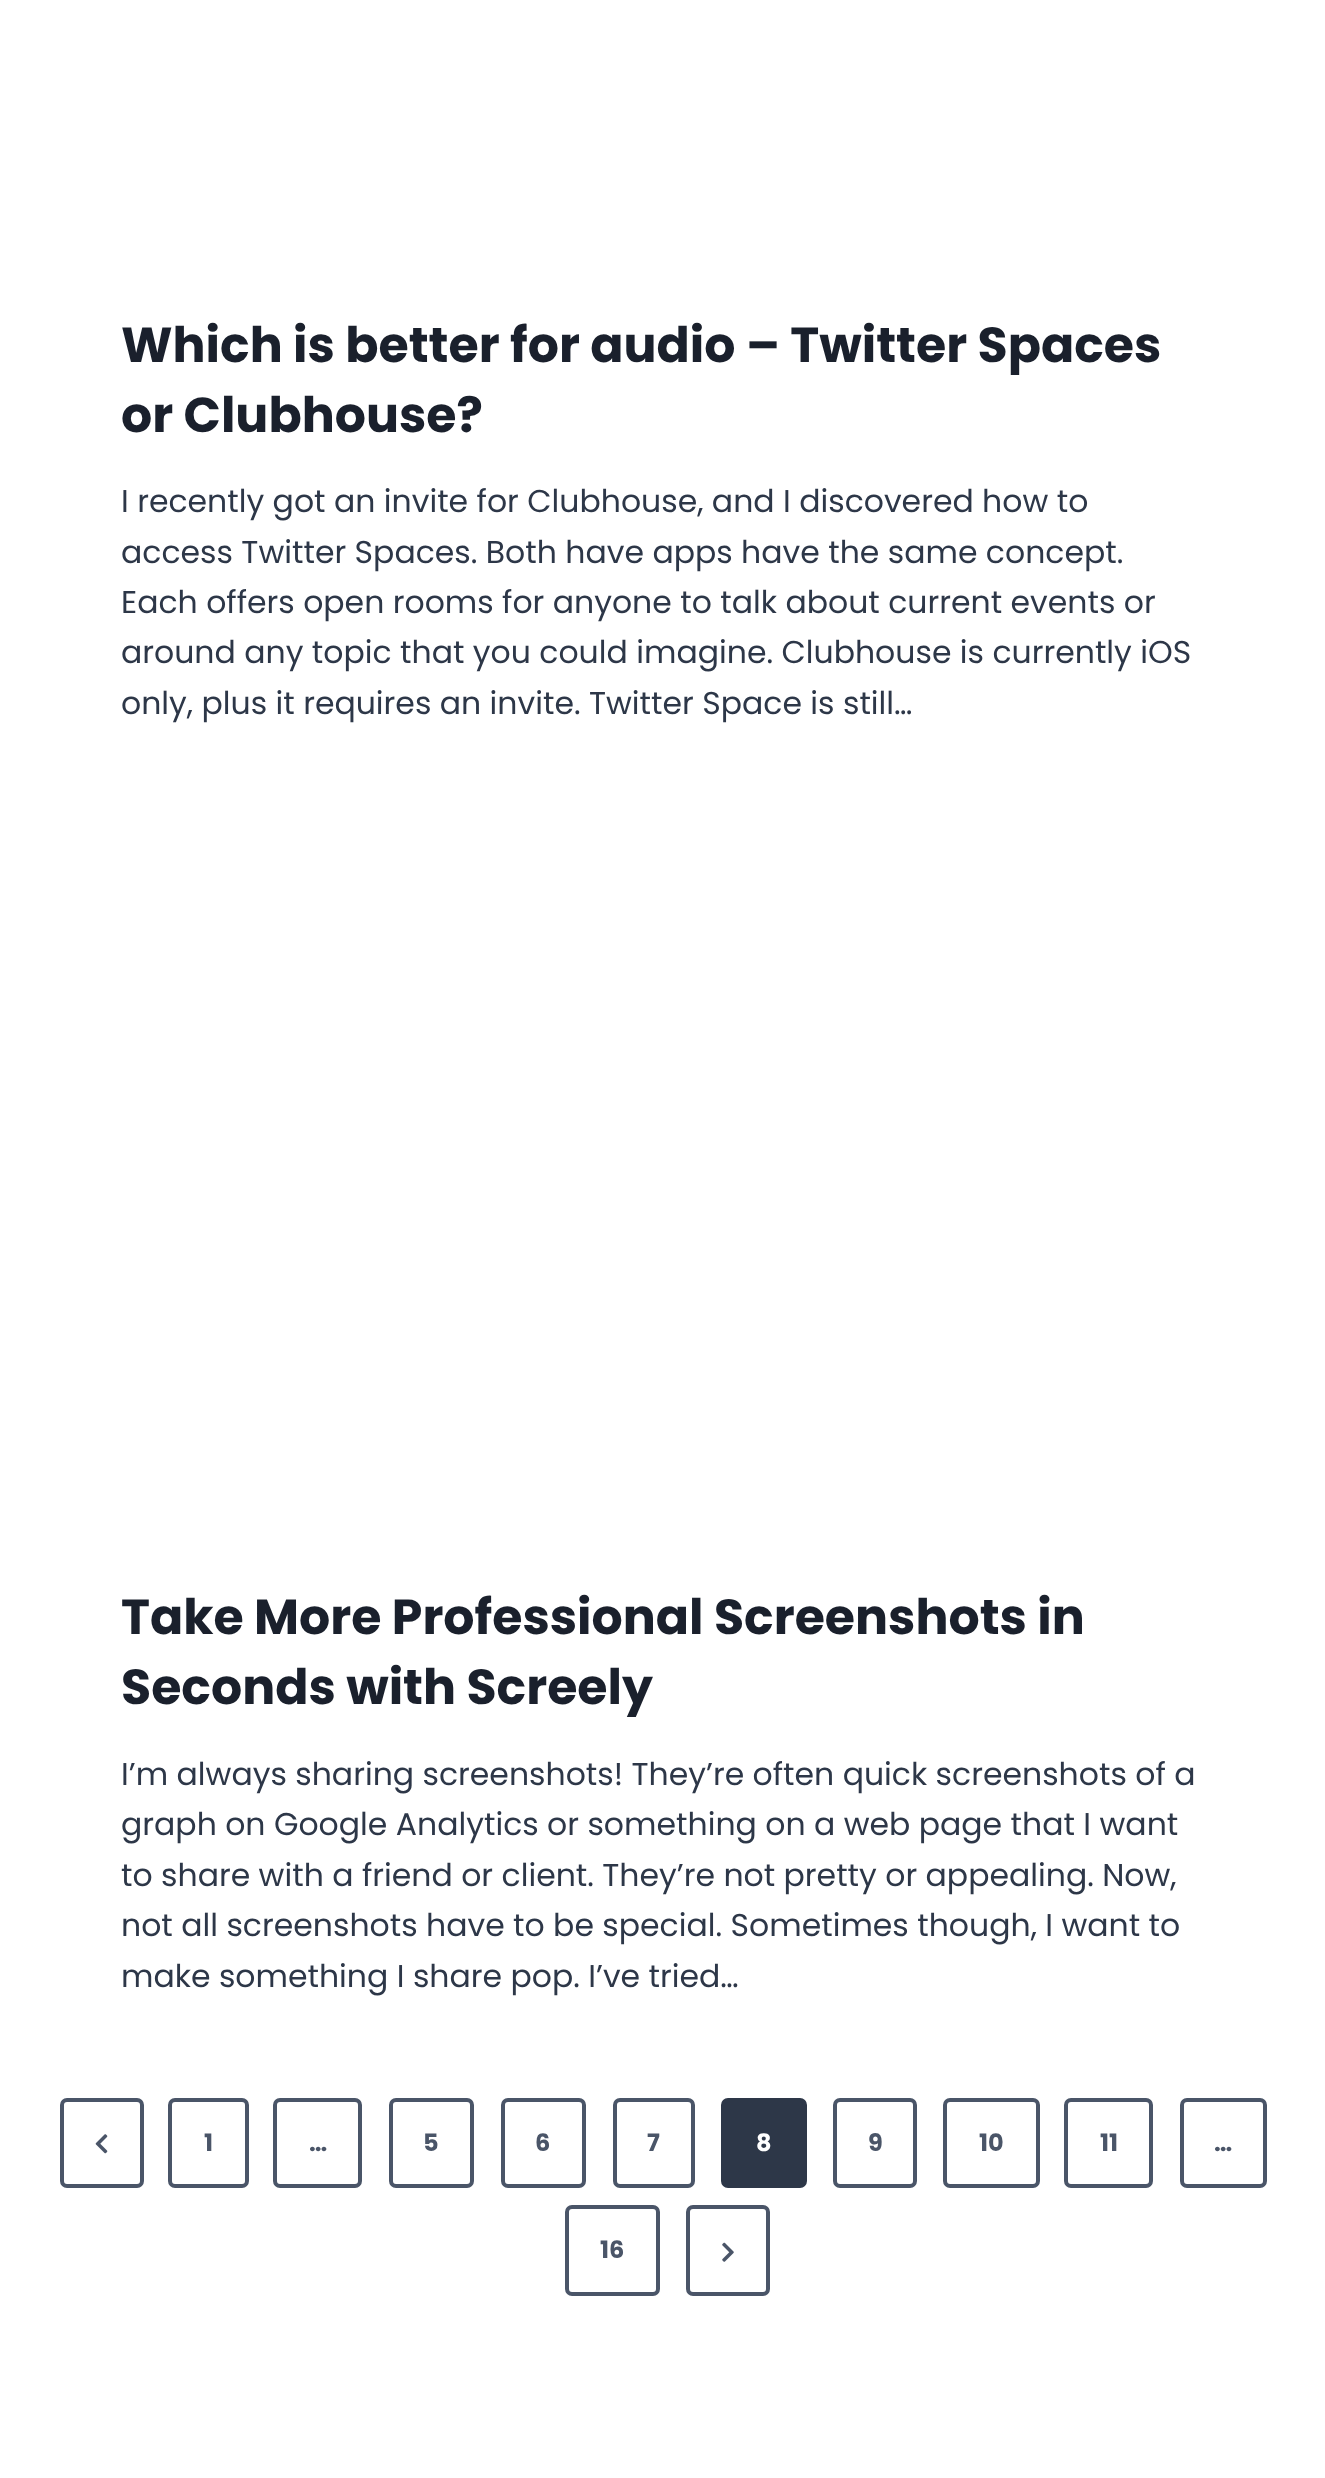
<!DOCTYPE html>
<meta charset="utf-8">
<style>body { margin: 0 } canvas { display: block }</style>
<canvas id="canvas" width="1325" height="2478"></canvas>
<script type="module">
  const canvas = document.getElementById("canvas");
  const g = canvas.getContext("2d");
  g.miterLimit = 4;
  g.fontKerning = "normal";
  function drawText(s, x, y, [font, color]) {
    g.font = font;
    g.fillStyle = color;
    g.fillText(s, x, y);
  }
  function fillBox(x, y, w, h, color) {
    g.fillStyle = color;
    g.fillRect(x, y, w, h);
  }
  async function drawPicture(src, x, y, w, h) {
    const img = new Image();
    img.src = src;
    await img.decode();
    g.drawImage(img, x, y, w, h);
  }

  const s1 = ["bold 49px Poppins", "#1A202C"];
  const s2 = ["31.5px Poppins", "#2D3748"];
  const s3 = ["bold 24px Poppins", "#4A5568"];
  const s4 = ["bold 24px Poppins", "#FFFFFF"];

  fillBox(0, 0, 1325, 2478, "#FFFFFF");
  drawText("Which is better for audio – Twitter Spaces", 121, 362, s1);
  drawText("or Clubhouse?", 121, 432, s1);
  drawText("I recently got an invite for Clubhouse, and I discovered how to", 121, 512, s2);
  drawText("access Twitter Spaces. Both have apps have the same concept.", 121, 563, s2);
  drawText("Each offers open rooms for anyone to talk about current events or", 121, 613, s2);
  drawText("around any topic that you could imagine. Clubhouse is currently iOS", 121, 663, s2);
  drawText("only, plus it requires an invite. Twitter Space is still…", 121, 714, s2);
  drawText("Take More Professional Screenshots in", 121, 1634, s1);
  drawText("Seconds with Screely", 121, 1704, s1);
  drawText("I’m always sharing screenshots! They’re often quick screenshots of a", 121, 1785, s2);
  drawText("graph on Google Analytics or something on a web page that I want", 121, 1835, s2);
  drawText("to share with a friend or client. They’re not pretty or appealing. Now,", 121, 1886, s2);
  drawText("not all screenshots have to be special. Sometimes though, I want to", 121, 1936, s2);
  drawText("make something I share pop. I’ve tried…", 121, 1987, s2);
  g.beginPath();
  g.roundRect(62, 2100, 80, 86, 5);
  g.strokeStyle = "#4A5568";
  g.lineWidth = 4;
  g.stroke();
  await drawPicture("pic1.png", 95, 2134, 13, 20);
  g.beginPath();
  g.roundRect(170, 2100, 77, 86, 5);
  g.stroke();
  drawText("1", 204, 2151, s3);
  g.beginPath();
  g.roundRect(275, 2100, 85, 86, 5);
  g.stroke();
  drawText("…", 309, 2151, s3);
  g.beginPath();
  g.roundRect(391, 2100, 81, 86, 5);
  g.stroke();
  drawText("5", 423, 2151, s3);
  g.beginPath();
  g.roundRect(503, 2100, 81, 86, 5);
  g.stroke();
  drawText("6", 535, 2151, s3);
  g.beginPath();
  g.roundRect(615, 2100, 78, 86, 5);
  g.stroke();
  drawText("7", 647, 2151, s3);
  g.fillStyle = "#2D3748";
  g.beginPath();
  g.roundRect(723, 2100, 82, 86, 5);
  g.fill();
  g.strokeStyle = "#2D3748";
  g.stroke();
  drawText("8", 756, 2151, s4);
  g.beginPath();
  g.roundRect(835, 2100, 80, 86, 5);
  g.strokeStyle = "#4A5568";
  g.stroke();
  drawText("9", 868, 2151, s3);
  g.beginPath();
  g.roundRect(945, 2100, 93, 86, 5);
  g.stroke();
  drawText("10", 979, 2151, s3);
  g.beginPath();
  g.roundRect(1066, 2100, 85, 86, 5);
  g.stroke();
  drawText("11", 1100, 2151, s3);
  g.beginPath();
  g.roundRect(1182, 2100, 83, 86, 5);
  g.stroke();
  drawText("…", 1214, 2151, s3);
  g.beginPath();
  g.roundRect(567, 2207, 91, 87, 5);
  g.stroke();
  drawText("16", 600, 2258, s3);
  g.beginPath();
  g.roundRect(688, 2207, 80, 87, 5);
  g.stroke();
  await drawPicture("pic2.png", 722, 2242, 12, 20);
</script>
